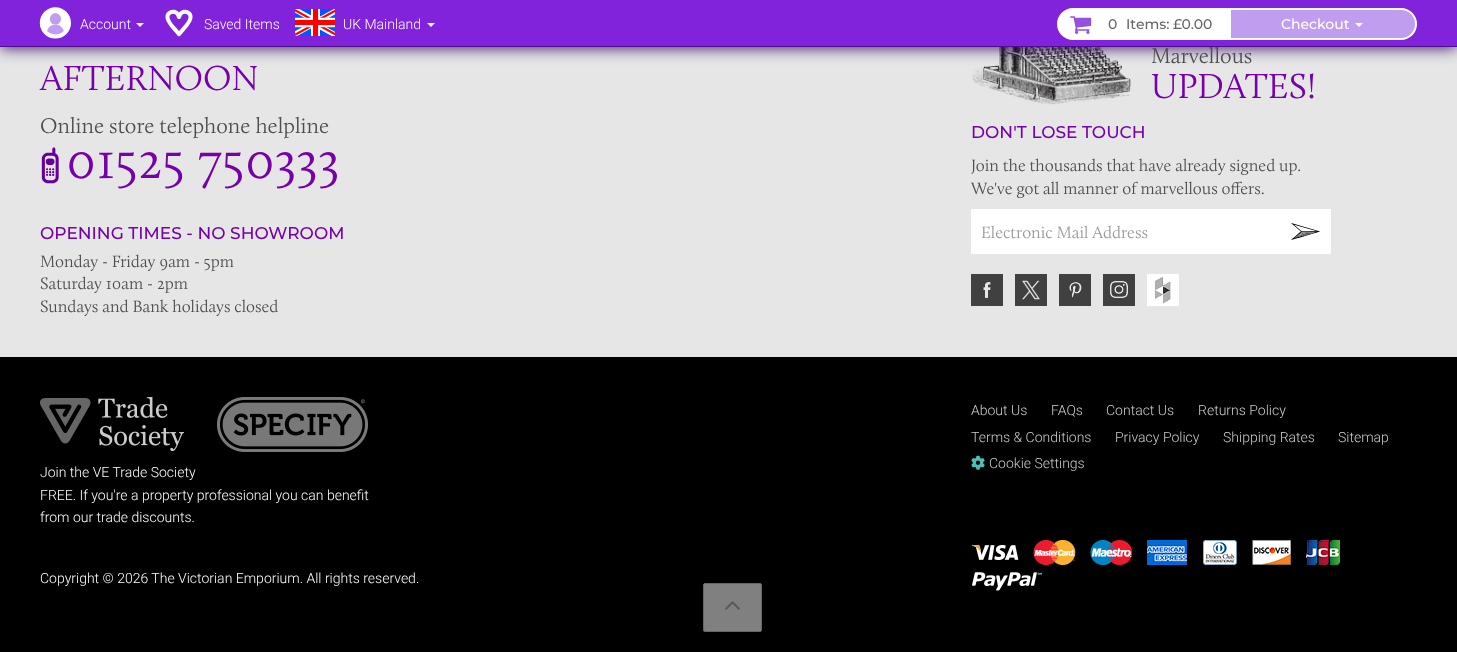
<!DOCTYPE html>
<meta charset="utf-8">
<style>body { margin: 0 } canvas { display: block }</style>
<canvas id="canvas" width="1457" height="652"></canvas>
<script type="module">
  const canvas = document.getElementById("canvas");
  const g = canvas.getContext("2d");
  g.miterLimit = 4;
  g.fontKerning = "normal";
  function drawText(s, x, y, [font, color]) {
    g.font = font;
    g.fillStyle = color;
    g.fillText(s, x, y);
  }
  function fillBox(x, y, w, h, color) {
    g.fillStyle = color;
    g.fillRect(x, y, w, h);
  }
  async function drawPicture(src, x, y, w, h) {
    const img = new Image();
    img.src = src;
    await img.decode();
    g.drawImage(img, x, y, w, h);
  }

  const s1 = ["300 22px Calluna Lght", "#4D4D4D"];
  const s2 = ["300 14px Roboto", "#FFFFFF"];
  const s3 = ["500 14px Montserrat", "#666666"];
  const s4 = ["500 14px Montserrat", "#FFFFFF"];
  const s5 = ["300 36px Calluna Lght", "#7700AA"];
  const s6 = ["300 54px Calluna Lght", "#7700AA"];
  const s7 = ["500 17px Montserrat", "#7700AA"];
  const s8 = ["300 17px Calluna Lght", "#4D4D4D"];
  const s9 = ["300 17px Calluna Lght", "#999999"];
  const s10 = ["300 14px Roboto", "#CCCCCC"];

  fillBox(0, 0, 1457, 652, "#E6E6E6");
  await drawPicture("pic6.png", 972, 47, 159, 58);
  g.fillStyle = "rgba(43, 0, 88, 0.9)";
  g.filter = "blur(7.5px)";
  g.beginPath();
  g.rect(0, 1, 1457, 47);
  g.fill();
  g.filter = "none";
  fillBox(0, 0, 1457, 46, "#8123DA");
  drawText("Marvellous", 1151, 63, s1);
  fillBox(0, 46, 1457, 1, "#4D0E8C");
  await drawPicture("pic1.png", 39, 7, 32, 32);
  drawText("Account", 80, 29, s2);
  g.beginPath();
  g.moveTo(136, 23);
  g.lineTo(144, 23);
  g.lineTo(140, 27);
  g.closePath();
  g.fill();
  await drawPicture("pic2.png", 165, 9, 28, 28);
  drawText("Saved Items", 204, 29, s2);
  await drawPicture("pic3.png", 295, 9, 40, 27);
  drawText("UK Mainland", 343, 29, s2);
  g.beginPath();
  g.moveTo(427, 23);
  g.lineTo(435, 23);
  g.lineTo(431, 27);
  g.closePath();
  g.fill();
  g.beginPath();
  g.roundRect(1058, 9, 171, 30, [15, 0, 0, 15]);
  g.fill();
  g.strokeStyle = "#FFFFFF";
  g.lineWidth = 2;
  g.stroke();
  await drawPicture("pic4.png", 1070, 16, 22, 18);
  drawText("0", 1108, 29, s3);
  drawText("Items:", 1126, 29, s3);
  drawText("£0.00", 1173, 29, s3);
  g.fillStyle = "#C09DEF";
  g.beginPath();
  g.roundRect(1230, 9, 186, 30, [0, 15, 15, 0]);
  g.fill();
  g.stroke();
  drawText("Checkout", 1281, 29, s4);
  g.beginPath();
  g.moveTo(1355, 23);
  g.lineTo(1363, 23);
  g.lineTo(1359, 27);
  g.closePath();
  g.fill();
  drawText("AFTERNOON", 40, 90, s5);
  drawText("Online store telephone helpline", 40, 133, s1);
  await drawPicture("pic5.png", 41, 147, 18, 37);
  drawText("01525 750333", 66, 178, s6);
  drawText("OPENING TIMES - NO SHOWROOM", 40, 239, s7);
  drawText("Monday - Friday 9am - 5pm", 40, 267, s8);
  drawText("Saturday 10am - 2pm", 40, 289, s8);
  drawText("Sundays and Bank holidays closed", 40, 312, s8);
  drawText("UPDATES!", 1151, 98, s5);
  drawText("DON'T LOSE TOUCH", 971, 138, s7);
  drawText("Join the thousands that have already signed up.", 971, 171, s8);
  drawText("We've got all manner of marvellous offers.", 971, 194, s8);
  fillBox(971, 209, 360, 45, "#FFFFFF");
  drawText("Electronic Mail Address", 981, 238, s9);
  await drawPicture("pic7.png", 1291, 223, 29, 17);
  await drawPicture("pic8.png", 971, 274, 32, 32);
  await drawPicture("pic9.png", 1015, 274, 32, 32);
  await drawPicture("pic10.png", 1059, 274, 32, 32);
  await drawPicture("pic11.png", 1103, 274, 32, 32);
  await drawPicture("pic12.png", 1147, 274, 32, 32);
  fillBox(0, 357, 1457, 295, "#000000");
  drawText("About Us", 971, 415, s10);
  drawText("FAQs", 1051, 415, s10);
  drawText("Contact Us", 1106, 415, s10);
  drawText("Returns Policy", 1198, 415, s10);
  drawText("Terms & Conditions", 971, 442, s10);
  drawText("Privacy Policy", 1115, 442, s10);
  drawText("Shipping Rates", 1223, 442, s10);
  drawText("Sitemap", 1338, 442, s10);
  await drawPicture("pic13.png", 971, 455, 14, 15);
  drawText("Cookie Settings", 989, 468, s10);
  await drawPicture("pic14.png", 972, 540, 368, 51);
  await drawPicture("pic15.png", 40, 397, 144, 54);
  await drawPicture("pic16.png", 217, 397, 151, 55);
  drawText("Join the VE Trade Society", 40, 477, s2);
  drawText("FREE. If you're a property professional you can benefit", 40, 500, s2);
  drawText("from our trade discounts.", 40, 522, s2);
  drawText("Copyright © 2026 The Victorian Emporium. All rights reserved.", 40, 583, s2);
  g.fillStyle = "#808080";
  g.beginPath();
  g.roundRect(703.5, 583.5, 58, 48, 1.5);
  g.fill();
  g.strokeStyle = "#666666";
  g.lineWidth = 1;
  g.stroke();
  await drawPicture("pic17.png", 725, 601, 15, 9);
</script>
